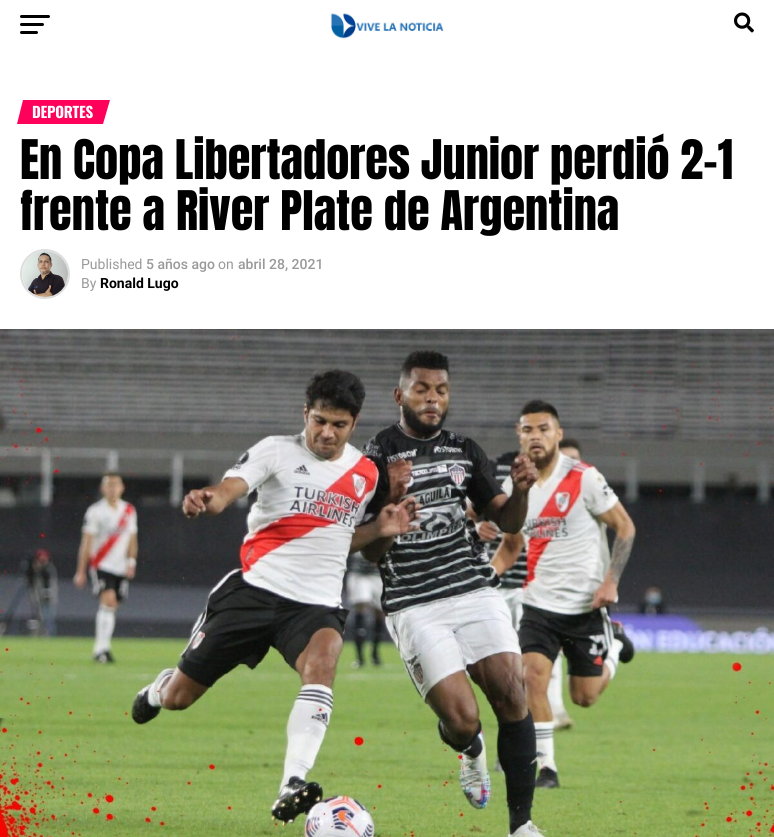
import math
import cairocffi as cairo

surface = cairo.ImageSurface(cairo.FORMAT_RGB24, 774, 837)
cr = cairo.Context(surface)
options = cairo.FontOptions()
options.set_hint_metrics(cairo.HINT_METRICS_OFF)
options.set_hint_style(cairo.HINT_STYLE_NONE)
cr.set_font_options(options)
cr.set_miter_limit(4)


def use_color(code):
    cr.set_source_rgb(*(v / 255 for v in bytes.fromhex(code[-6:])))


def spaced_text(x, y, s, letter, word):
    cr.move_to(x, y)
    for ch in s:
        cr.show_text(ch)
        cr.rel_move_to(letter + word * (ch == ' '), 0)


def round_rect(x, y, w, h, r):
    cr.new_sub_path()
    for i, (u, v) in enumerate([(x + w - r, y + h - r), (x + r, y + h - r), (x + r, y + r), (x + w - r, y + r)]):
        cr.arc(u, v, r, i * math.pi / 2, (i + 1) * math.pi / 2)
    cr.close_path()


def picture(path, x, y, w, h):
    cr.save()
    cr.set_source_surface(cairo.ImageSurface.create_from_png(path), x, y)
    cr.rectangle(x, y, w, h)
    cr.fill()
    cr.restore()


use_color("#ffffff")
cr.paint()
use_color("#000000")
round_rect(20, 15, 30, 3, 1.5)
cr.fill()
round_rect(20, 23, 24, 3, 1.5)
cr.fill()
round_rect(20, 31, 18, 3, 1.5)
cr.fill()
picture("img1.png", 330, 13, 114, 26)
picture("img2.png", 734, 12, 20, 21)
use_color("#ff005b")
cr.new_path()
cr.move_to(23, 100)
cr.line_to(110, 100)
cr.line_to(103, 124)
cr.line_to(17, 124)
cr.close_path()
cr.fill()
cr.select_font_face("Oswald", cairo.FONT_SLANT_NORMAL, cairo.FONT_WEIGHT_BOLD)
cr.set_font_size(15)
use_color("#ffffff")
spaced_text(32, 118, "DEPORTES", -0.25, 0)
cr.select_font_face("Anton")
cr.set_font_size(46.4)
use_color("#000000")
cr.move_to(20, 179)
cr.show_text("En Copa Libertadores Junior perdió 2-1")
cr.move_to(20, 230)
cr.show_text("frente a River Plate de Argentina")
cr.new_path()
cr.arc(45, 274, 24, 0, 2 * math.pi)
use_color("#dddddd")
cr.stroke()
picture("img3.png", 22, 251, 46, 46)
cr.select_font_face("Roboto")
cr.set_font_size(14)
use_color("#999999")
cr.move_to(81, 269)
cr.show_text("Published")
cr.select_font_face("Roboto Medium")
cr.move_to(146, 269)
cr.show_text("5 años ago")
cr.select_font_face("Roboto")
cr.move_to(218, 269)
cr.show_text("on")
cr.select_font_face("Roboto Medium")
cr.move_to(238, 269)
cr.show_text("abril 28, 2021")
cr.select_font_face("Roboto")
cr.move_to(81, 288)
cr.show_text("By")
cr.select_font_face("Roboto", cairo.FONT_SLANT_NORMAL, cairo.FONT_WEIGHT_BOLD)
use_color("#000000")
cr.move_to(100, 288)
cr.show_text("Ronald Lugo")
picture("img4.png", 0, 329, 774, 508)
surface.write_to_png("result.png")
